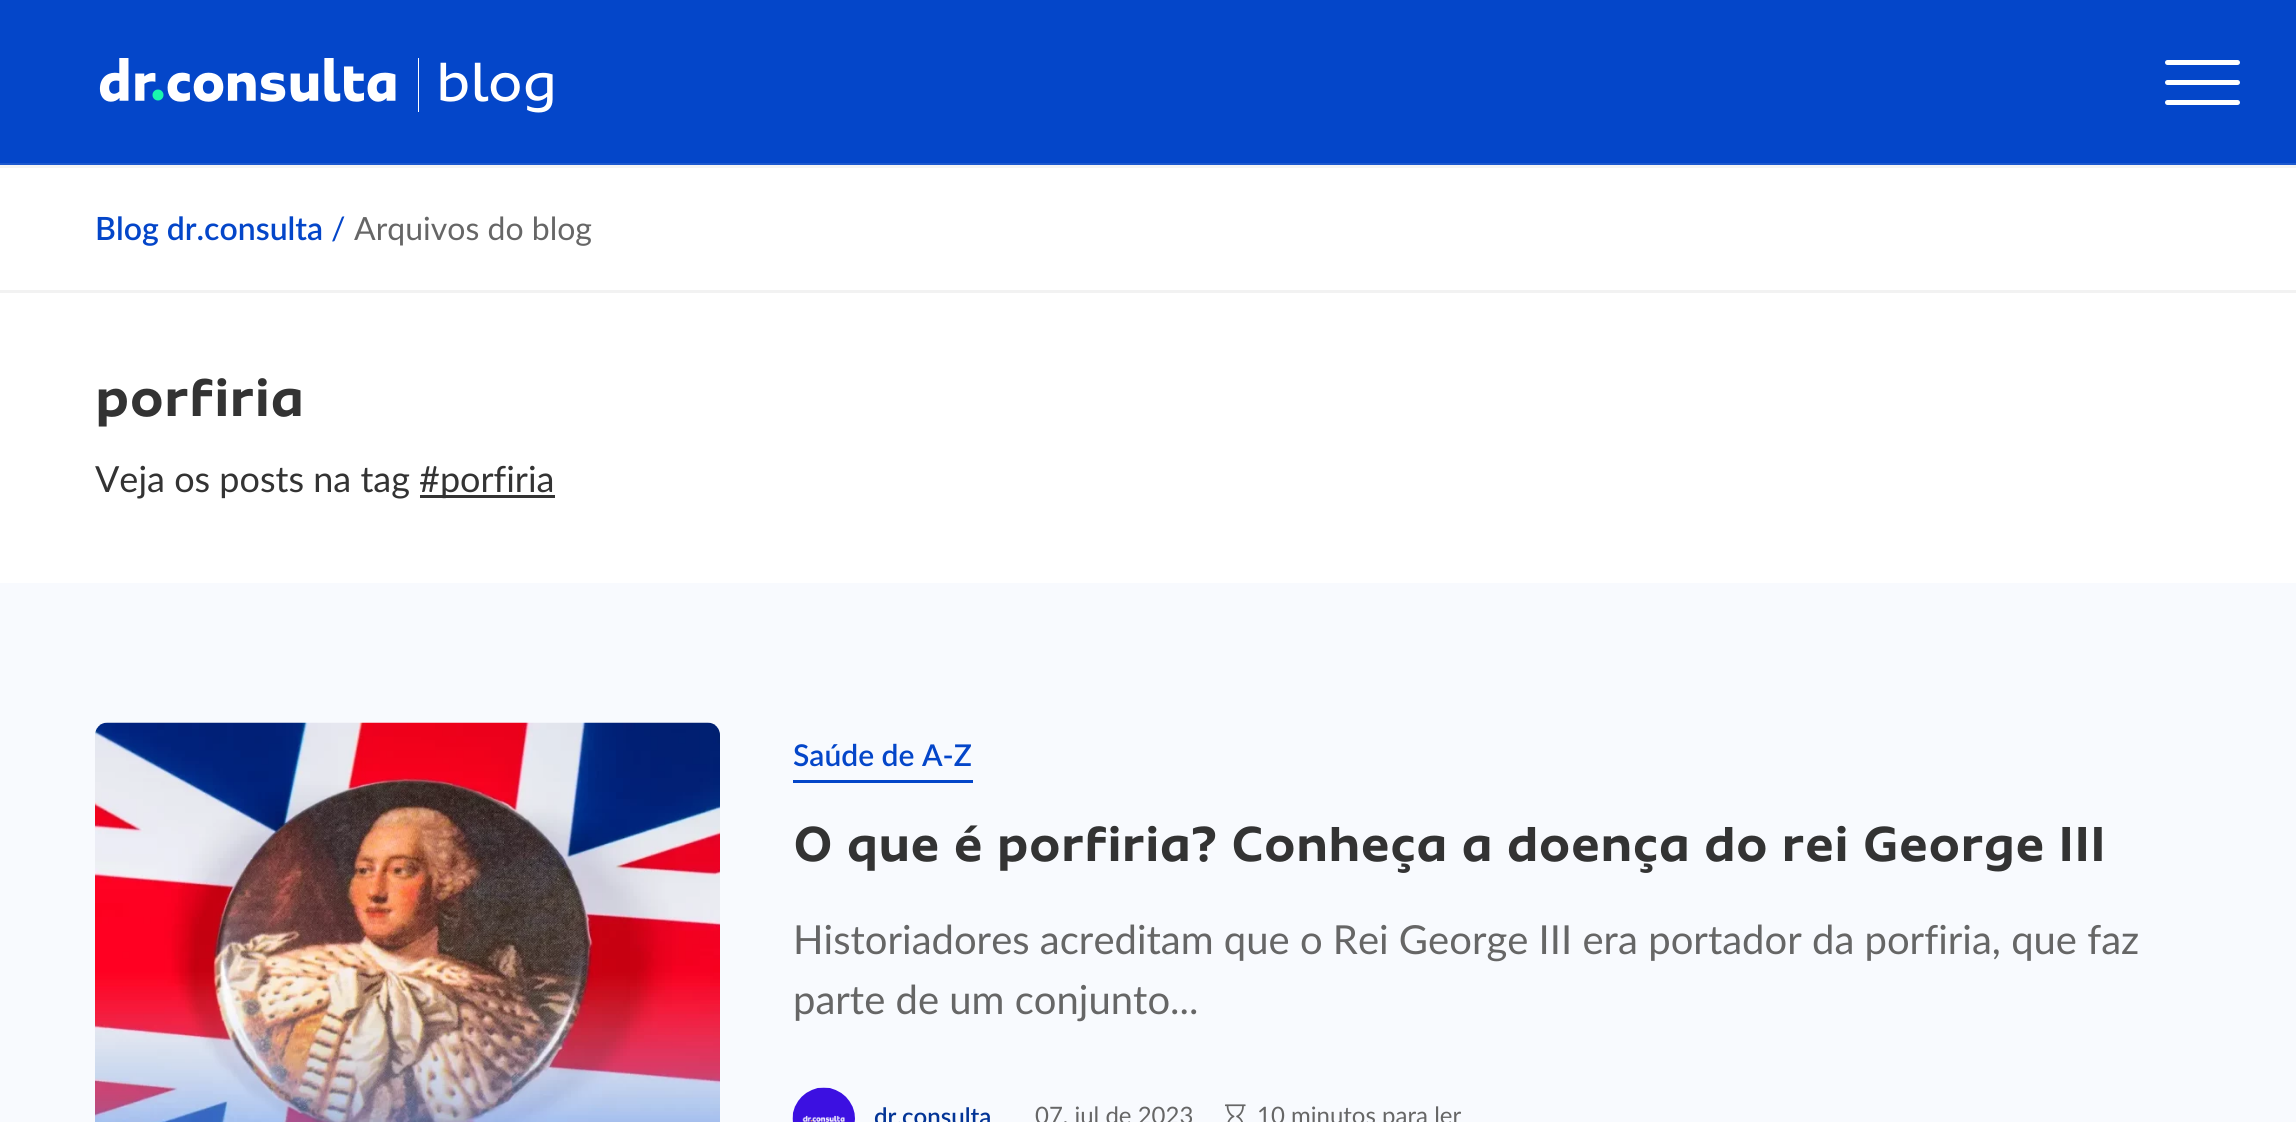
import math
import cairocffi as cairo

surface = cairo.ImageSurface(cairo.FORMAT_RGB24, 2296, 1122)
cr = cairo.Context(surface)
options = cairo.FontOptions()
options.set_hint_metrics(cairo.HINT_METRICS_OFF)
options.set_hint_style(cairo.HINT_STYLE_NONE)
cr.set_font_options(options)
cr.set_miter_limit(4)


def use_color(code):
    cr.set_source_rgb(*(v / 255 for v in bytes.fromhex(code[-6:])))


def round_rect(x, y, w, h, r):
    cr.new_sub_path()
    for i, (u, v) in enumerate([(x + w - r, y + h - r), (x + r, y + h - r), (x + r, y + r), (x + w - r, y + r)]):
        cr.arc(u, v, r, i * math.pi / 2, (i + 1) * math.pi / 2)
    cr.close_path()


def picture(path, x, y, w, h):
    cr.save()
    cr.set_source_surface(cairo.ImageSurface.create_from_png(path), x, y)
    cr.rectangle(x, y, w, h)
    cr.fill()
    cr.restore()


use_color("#f8fafe")
cr.paint()
use_color("#0446c9")
cr.rectangle(0, 0, 2296, 163)
cr.fill()
use_color("#1d59ce")
cr.rectangle(0, 163, 2296, 2)
cr.fill()
picture("img1.png", 99, 58, 454, 55)
use_color("#ffffff")
round_rect(2165, 80, 75, 5, 2.5)
cr.fill()
round_rect(2165, 60, 75, 5, 2.5)
cr.fill()
round_rect(2165, 100, 75, 5, 2.5)
cr.fill()
cr.rectangle(0, 168, 2296, 122)
cr.fill()
use_color("#f4f4f4")
cr.rectangle(0, 166, 2296, 2)
cr.fill()
use_color("#f5f5f5")
cr.rectangle(0, 165, 2296, 1)
cr.fill()
cr.select_font_face("Lato SemiBold")
cr.set_font_size(32)
use_color("#0446c9")
cr.move_to(95, 240)
cr.show_text("Blog dr.consulta")
cr.select_font_face("Lato")
cr.move_to(331, 240)
cr.show_text("/")
use_color("#666666")
cr.move_to(354, 240)
cr.show_text("Arquivos do blog")
use_color("#ffffff")
cr.rectangle(0, 293, 2296, 290)
cr.fill()
use_color("#f2f2f2")
cr.rectangle(0, 290, 2296, 3)
cr.fill()
cr.select_font_face("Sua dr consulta", cairo.FONT_SLANT_NORMAL, cairo.FONT_WEIGHT_BOLD)
cr.set_font_size(56)
use_color("#333333")
cr.move_to(95, 416)
cr.show_text("porfiria")
cr.select_font_face("Lato")
cr.set_font_size(36)
cr.move_to(95, 492)
cr.show_text("Veja os posts na tag")
cr.rectangle(420, 495, 135, 3)
cr.fill()
cr.move_to(419, 492)
cr.show_text("#porfiria")
picture("img2.png", 95, 722, 625, 400)
use_color("#0446c9")
cr.rectangle(793, 780, 180, 3)
cr.fill()
cr.select_font_face("Lato SemiBold")
cr.set_font_size(30)
cr.move_to(793, 766)
cr.show_text("Saúde de A-Z")
cr.select_font_face("Sua dr consulta", cairo.FONT_SLANT_NORMAL, cairo.FONT_WEIGHT_BOLD)
cr.set_font_size(52)
use_color("#333333")
cr.move_to(793, 861)
cr.show_text("O que é porfiria? Conheça a doença do rei George III")
cr.select_font_face("Lato")
cr.set_font_size(40)
use_color("#666666")
cr.move_to(793, 954)
cr.show_text("Historiadores acreditam que o Rei George III era portador da porfiria, que faz")
cr.move_to(793, 1014)
cr.show_text("parte de um conjunto...")
picture("img3.png", 792, 1087, 63, 35)
cr.select_font_face("Lato SemiBold")
cr.set_font_size(24)
use_color("#033496")
cr.move_to(874, 1125)
cr.show_text("dr.consulta")
cr.select_font_face("Lato")
use_color("#666666")
cr.move_to(1035, 1124)
cr.show_text("07, jul de 2023")
picture("img4.png", 1225, 1104, 21, 18)
cr.move_to(1257, 1124)
cr.show_text("10 minutos para ler")
surface.write_to_png("result.png")
